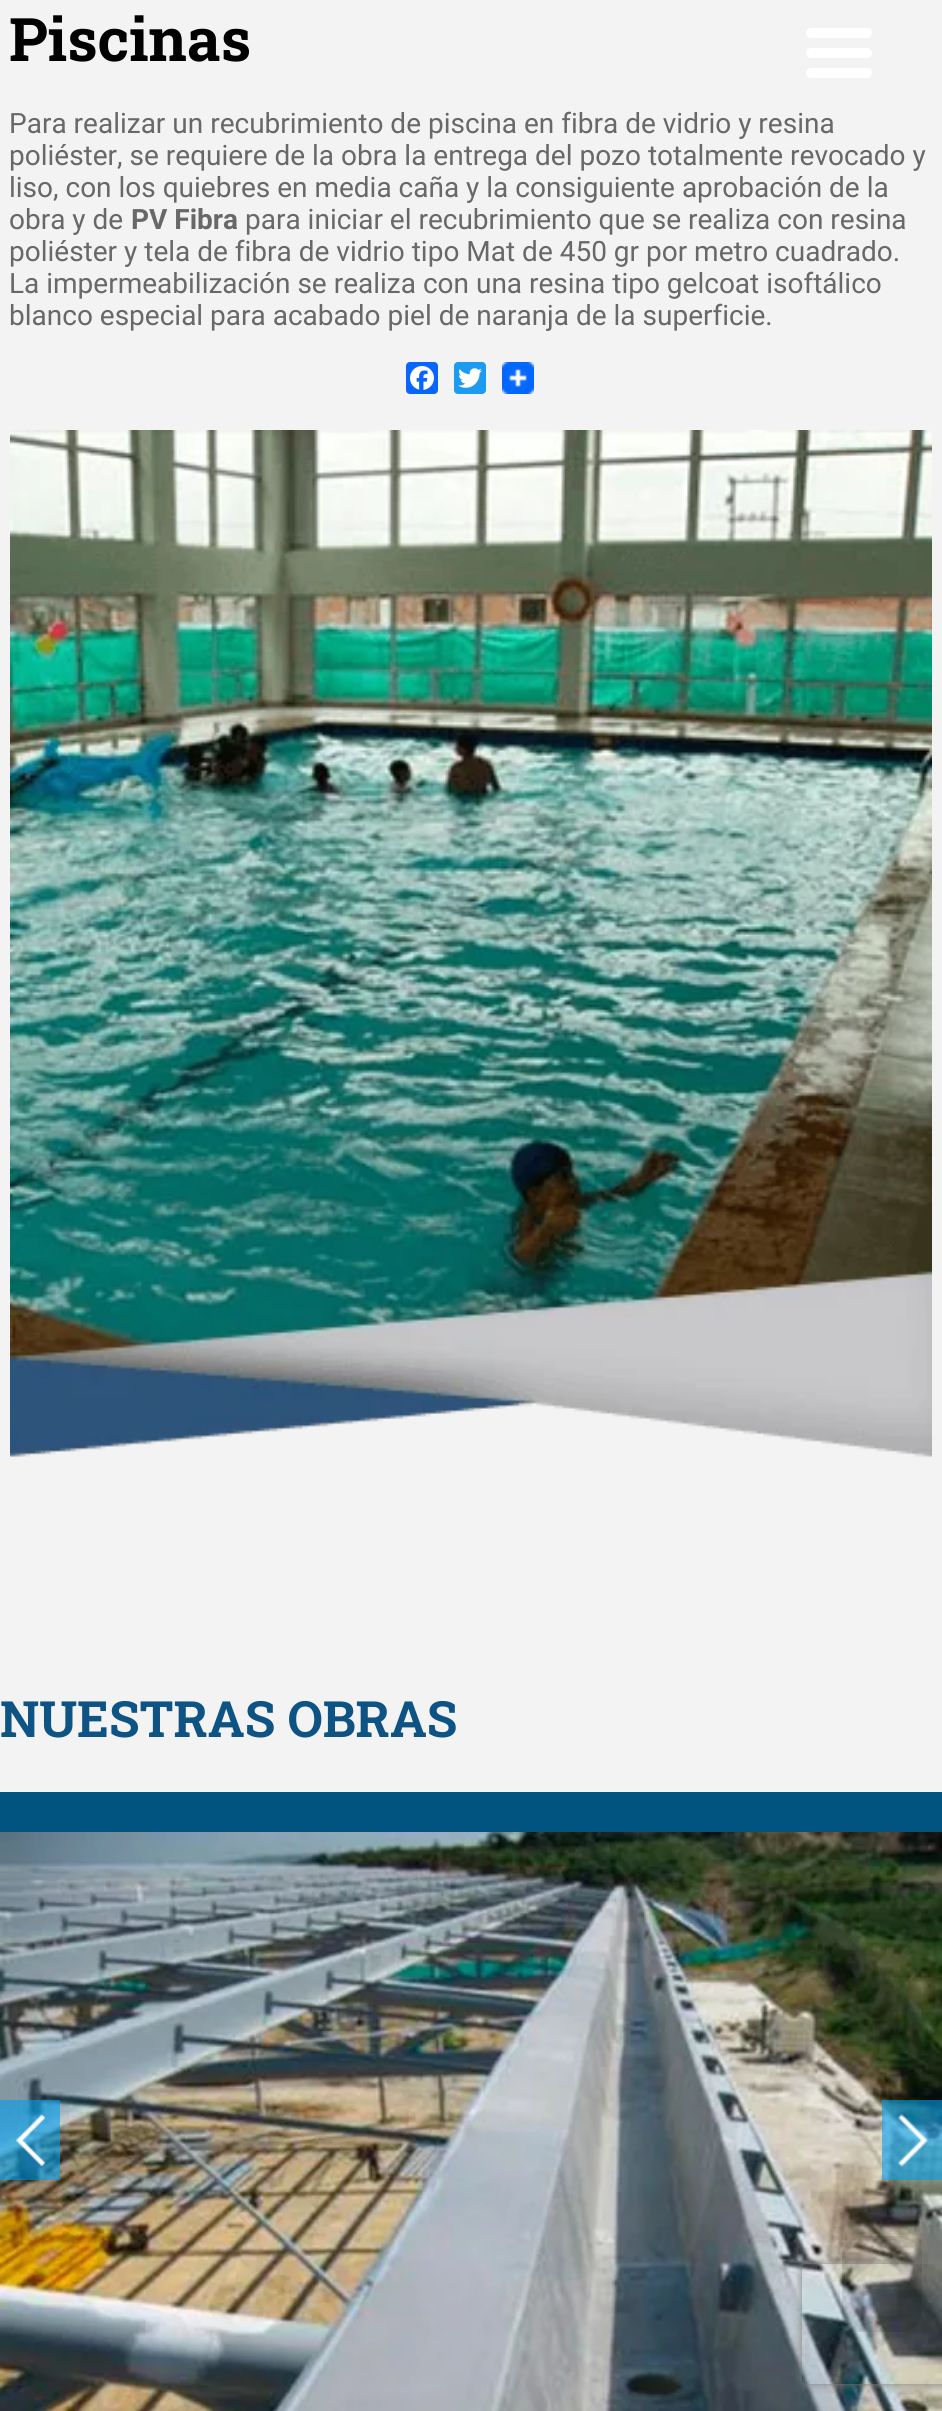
import math
import cairocffi as cairo

surface = cairo.ImageSurface(cairo.FORMAT_RGB24, 942, 2411)
cr = cairo.Context(surface)
options = cairo.FontOptions()
options.set_hint_metrics(cairo.HINT_METRICS_OFF)
options.set_hint_style(cairo.HINT_STYLE_NONE)
cr.set_font_options(options)
cr.set_miter_limit(4)


def use_color(code):
    cr.set_source_rgb(*(v / 255 for v in bytes.fromhex(code[-6:])))


def round_rect(x, y, w, h, r):
    cr.new_sub_path()
    for i, (u, v) in enumerate([(x + w - r, y + h - r), (x + r, y + h - r), (x + r, y + r), (x + w - r, y + r)]):
        cr.arc(u, v, r, i * math.pi / 2, (i + 1) * math.pi / 2)
    cr.close_path()


def shadow(x, y, w, h, r, blur, alpha):
    cr.push_group_with_content(cairo.CONTENT_ALPHA)
    cr.set_operator(cairo.OPERATOR_SOURCE)
    for i in range(15, -16, -2):
        e = blur * i / 6
        if min(w, h) + 2 * e > 0:
            cr.set_source_rgba(0, 0, 0, alpha * math.erfc((i - 1) / 8.5) / 2)
            round_rect(x - e, y - e, w + 2 * e, h + 2 * e, max(0, min(r + e + blur * .6, min(w, h) / 2 + e)))
            cr.fill()
    cr.mask(cr.pop_group())


def picture(path, x, y, w, h):
    cr.save()
    cr.set_source_surface(cairo.ImageSurface.create_from_png(path), x, y)
    cr.rectangle(x, y, w, h)
    cr.fill()
    cr.restore()


use_color("#f4f3f3")
cr.paint()
cr.select_font_face("Roboto Slab", cairo.FONT_SLANT_NORMAL, cairo.FONT_WEIGHT_BOLD)
cr.set_font_size(60)
use_color("#010101")
cr.move_to(9, 61)
cr.show_text("Piscinas")
cr.select_font_face("Roboto")
cr.set_font_size(28)
use_color("#686868")
cr.move_to(9, 133)
cr.show_text("Para realizar un recubrimiento de piscina en fibra de vidrio y resina")
cr.move_to(9, 165)
cr.show_text("poliéster, se requiere de la obra la entrega del pozo totalmente revocado y")
cr.move_to(9, 197)
cr.show_text("liso, con los quiebres en media caña y la consiguiente aprobación de la")
cr.move_to(9, 229)
cr.show_text("obra y de")
cr.select_font_face("Roboto", cairo.FONT_SLANT_NORMAL, cairo.FONT_WEIGHT_BOLD)
cr.move_to(131, 229)
cr.show_text("PV Fibra")
cr.select_font_face("Roboto")
cr.move_to(245, 229)
cr.show_text("para iniciar el recubrimiento que se realiza con resina")
cr.move_to(9, 261)
cr.show_text("poliéster y tela de fibra de vidrio tipo Mat de 450 gr por metro cuadrado.")
cr.move_to(9, 293)
cr.show_text("La impermeabilización se realiza con una resina tipo gelcoat isoftálico")
cr.move_to(9, 325)
cr.show_text("blanco especial para acabado piel de naranja de la superficie.")
use_color("#0866ff")
round_rect(406, 362, 32, 32, 4)
cr.fill()
picture("img1.png", 410, 366, 24, 24)
use_color("#1d9bf0")
round_rect(454, 362, 32, 32, 4)
cr.fill()
picture("img2.png", 458, 368, 24, 20)
picture("img3.png", 502, 362, 32, 32)
picture("img4.png", 10, 430, 922, 1027)
cr.select_font_face("Roboto Slab", cairo.FONT_SLANT_NORMAL, cairo.FONT_WEIGHT_BOLD)
cr.set_font_size(50)
use_color("#0d5384")
cr.move_to(0, 1737)
cr.show_text("NUESTRAS OBRAS")
use_color("#015480")
cr.rectangle(0, 1792, 942, 40)
cr.fill()
picture("img5.png", 0, 1832, 942, 579)
cr.set_source_rgba(0, 0.62, 0.929, 0.6)
cr.rectangle(0, 2100, 60, 80)
cr.fill()
picture("img6.png", 16, 2114, 30, 52)
cr.rectangle(882, 2100, 60, 80)
cr.fill()
picture("img7.png", 897, 2113, 32, 54)
use_color("#ffffff")
round_rect(806, 48, 66, 10, 5)
cr.fill()
round_rect(806, 28, 66, 10, 5)
cr.fill()
round_rect(806, 68, 66, 10, 5)
cr.fill()
cr.save()
cr.set_fill_rule(cairo.FILL_RULE_EVEN_ODD)
cr.new_path()
cr.move_to(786, 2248)
cr.line_to(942, 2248)
cr.line_to(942, 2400)
cr.line_to(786, 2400)
cr.close_path()
cr.move_to(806, 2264)
cr.line_to(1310, 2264)
cr.curve_to(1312, 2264, 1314, 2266, 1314, 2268)
cr.line_to(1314, 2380)
cr.curve_to(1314, 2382, 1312, 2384, 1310, 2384)
cr.line_to(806, 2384)
cr.curve_to(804, 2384, 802, 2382, 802, 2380)
cr.line_to(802, 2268)
cr.curve_to(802, 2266, 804, 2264, 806, 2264)
cr.close_path()
cr.clip()
use_color("#808080")
shadow(802, 2264, 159, 120, 4, 5, 1)
cr.restore()
picture("img8.png", 842, 2236, 80, 96)
surface.write_to_png("result.png")
